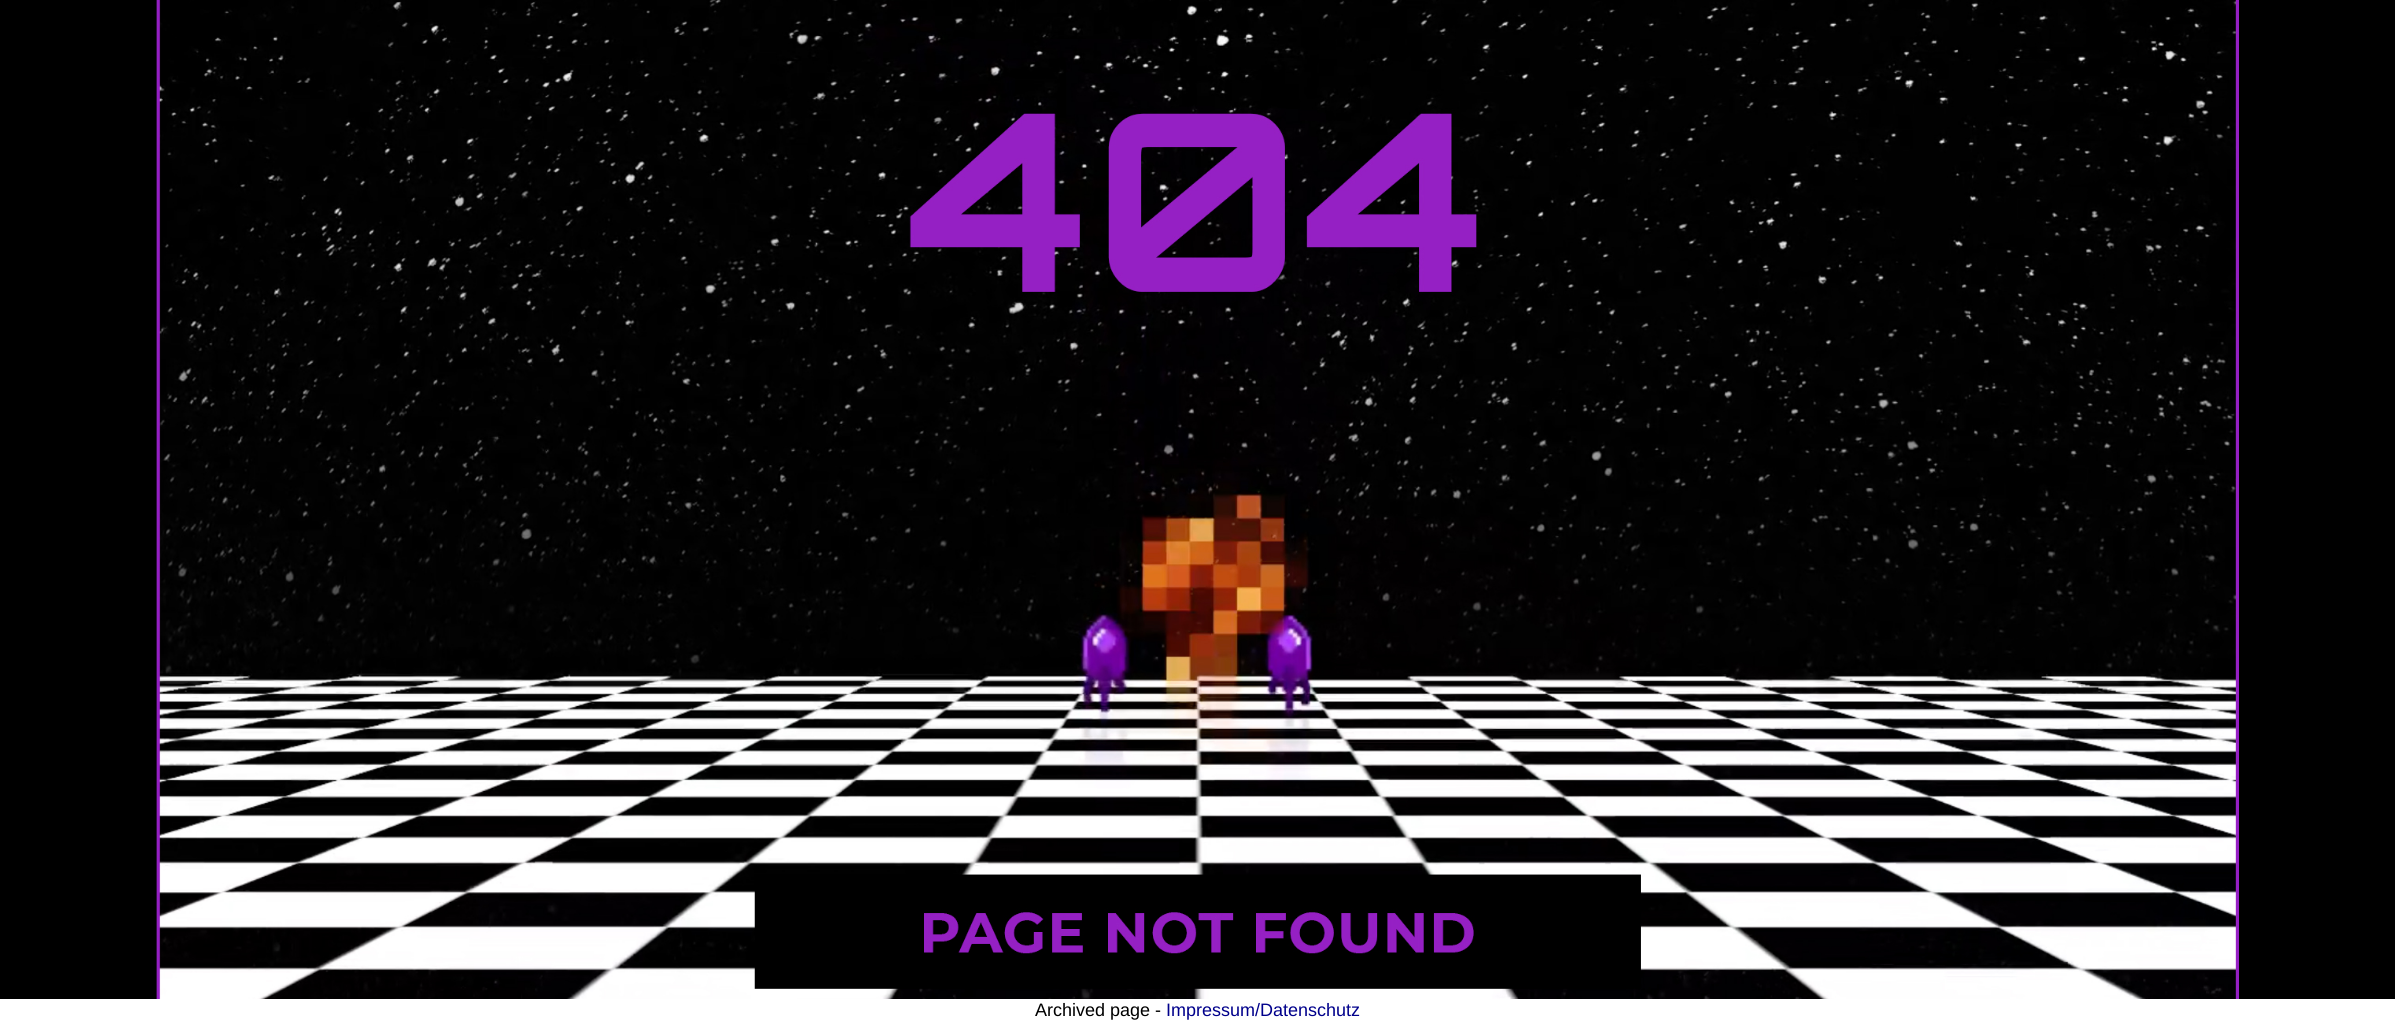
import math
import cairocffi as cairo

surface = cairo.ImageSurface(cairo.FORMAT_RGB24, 2395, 1022)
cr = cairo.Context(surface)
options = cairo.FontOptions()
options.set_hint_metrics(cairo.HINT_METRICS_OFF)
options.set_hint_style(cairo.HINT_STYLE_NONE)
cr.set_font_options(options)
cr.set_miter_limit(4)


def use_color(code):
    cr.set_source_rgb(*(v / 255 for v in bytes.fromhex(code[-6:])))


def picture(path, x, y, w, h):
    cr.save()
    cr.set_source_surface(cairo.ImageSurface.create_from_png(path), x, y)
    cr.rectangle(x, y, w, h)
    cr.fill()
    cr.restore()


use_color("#000000")
cr.paint()
picture("img1.png", 156, 0, 2083, 999)
use_color("#ffffff")
cr.rectangle(0, 999, 2395, 23)
cr.fill()
cr.select_font_face("Liberation Sans")
cr.set_font_size(18)
use_color("#000000")
cr.move_to(1035, 1016)
cr.show_text("Archived page -")
use_color("#00008b")
cr.move_to(1166, 1016)
cr.show_text("Impressum/Datenschutz")
surface.write_to_png("result.png")
